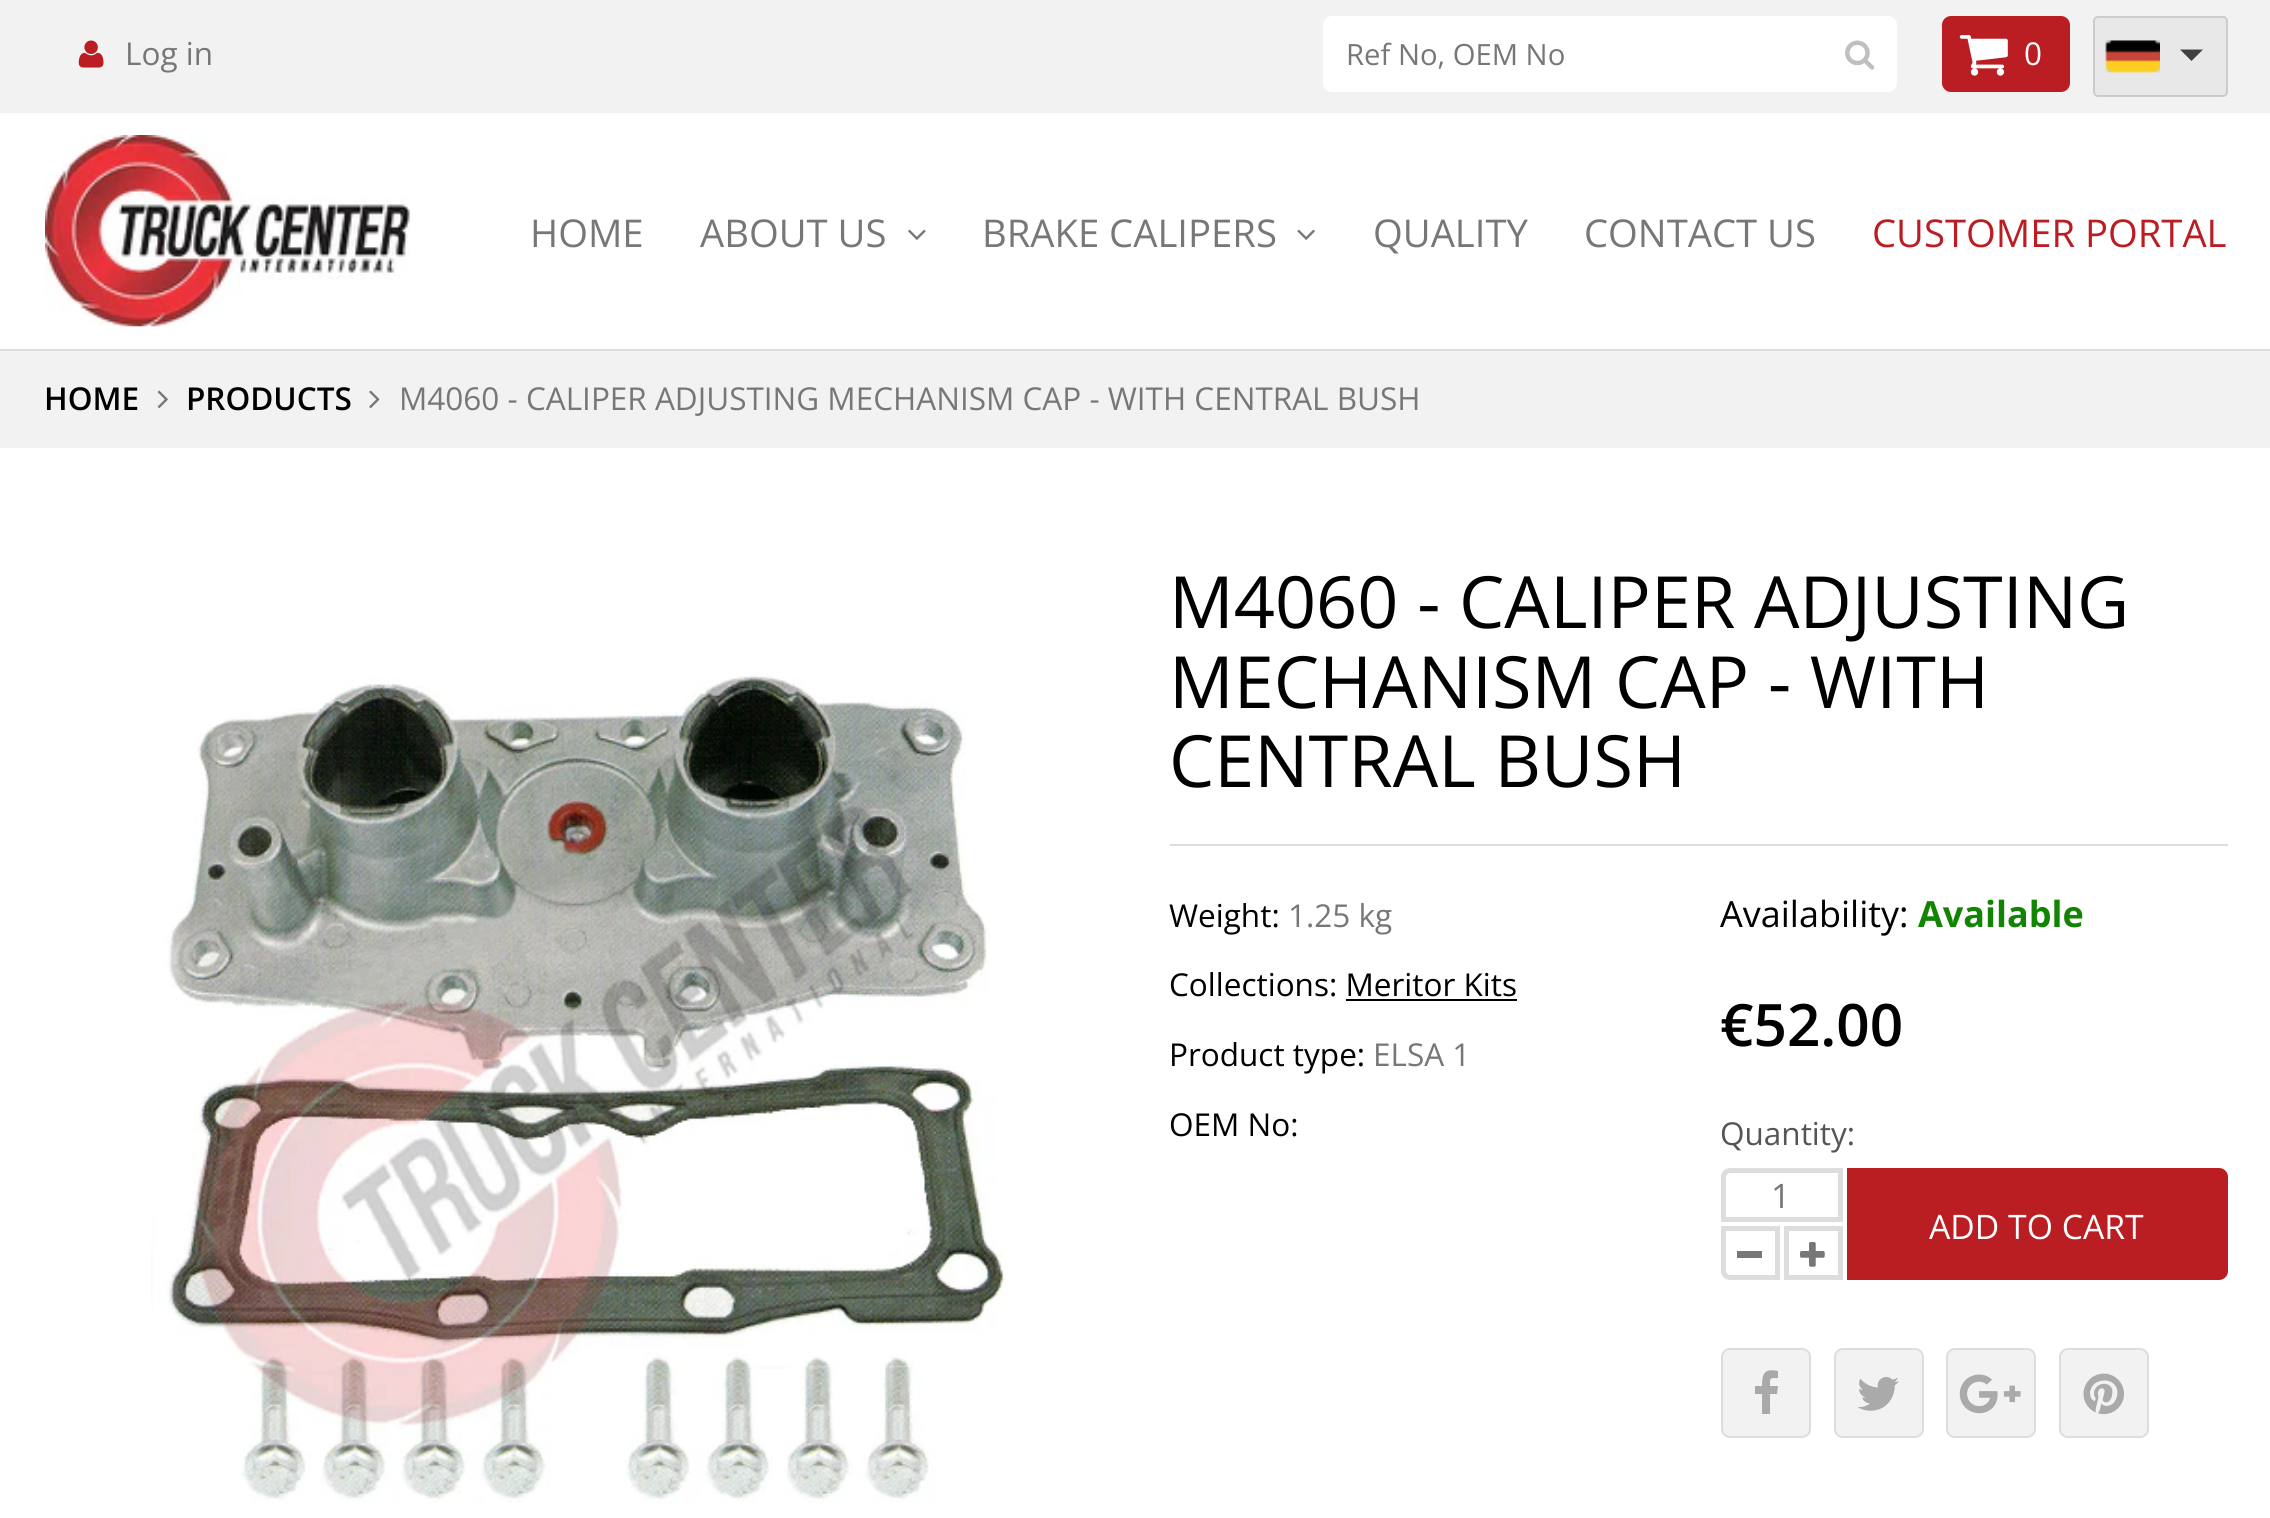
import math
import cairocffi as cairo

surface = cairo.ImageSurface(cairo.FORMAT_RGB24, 2270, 1518)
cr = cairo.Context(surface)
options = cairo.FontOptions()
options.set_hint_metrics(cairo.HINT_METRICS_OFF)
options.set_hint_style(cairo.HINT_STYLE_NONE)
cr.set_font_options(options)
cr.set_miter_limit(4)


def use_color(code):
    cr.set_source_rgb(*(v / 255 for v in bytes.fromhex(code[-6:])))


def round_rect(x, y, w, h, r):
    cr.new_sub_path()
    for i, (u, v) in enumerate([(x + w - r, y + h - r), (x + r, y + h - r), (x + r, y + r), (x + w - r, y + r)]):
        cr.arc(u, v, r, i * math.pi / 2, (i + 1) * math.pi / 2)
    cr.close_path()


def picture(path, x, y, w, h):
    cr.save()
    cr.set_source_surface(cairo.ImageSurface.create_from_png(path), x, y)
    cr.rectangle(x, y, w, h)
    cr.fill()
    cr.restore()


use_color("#f2f2f2")
cr.paint()
picture("img1.png", 78, 40, 26, 28)
cr.select_font_face("Open Sans")
cr.set_font_size(31.5)
use_color("#777777")
cr.move_to(125, 65)
cr.show_text("Log in")
use_color("#ffffff")
round_rect(1323, 16, 574, 76, 9)
cr.fill()
cr.set_font_size(29.25)
use_color("#777777")
cr.move_to(1346, 65)
cr.show_text("Ref No, OEM No")
picture("img2.png", 1845, 40, 30, 30)
use_color("#ba1d22")
round_rect(1942, 16, 128, 76, 9)
cr.fill()
picture("img3.png", 1959, 35, 49, 41)
cr.set_font_size(31.5)
use_color("#ffffff")
cr.move_to(2024, 65)
cr.show_text("0")
use_color("#e8e8e8")
round_rect(2094, 17, 133, 79, 4)
cr.fill_preserve()
use_color("#cccccc")
cr.stroke()
picture("img4.png", 2105, 40, 55, 33)
use_color("#404040")
cr.new_path()
cr.move_to(2180, 49.5)
cr.line_to(2203, 49.5)
cr.line_to(2191.5, 61)
cr.close_path()
cr.fill()
use_color("#dddddd")
cr.rectangle(0, 349, 2270, 2)
cr.fill()
use_color("#ffffff")
cr.rectangle(0, 113, 2270, 236)
cr.fill()
picture("img5.png", 45, 135, 365, 192)
cr.set_font_size(38.25)
use_color("#777777")
cr.move_to(530, 247)
cr.show_text("HOME")
cr.move_to(700, 247)
cr.show_text("ABOUT US")
picture("img6.png", 908, 229, 18, 11)
cr.move_to(982, 247)
cr.show_text("BRAKE CALIPERS")
picture("img7.png", 1297, 229, 18, 11)
cr.move_to(1373, 247)
cr.show_text("QUALITY")
cr.move_to(1584, 247)
cr.show_text("CONTACT US")
use_color("#ba1d22")
cr.move_to(1872, 247)
cr.show_text("CUSTOMER PORTAL")
use_color("#ffffff")
cr.rectangle(0, 448, 2270, 1070)
cr.fill()
cr.select_font_face("Open Sans SemiBold")
cr.set_font_size(31.5)
use_color("#000000")
cr.move_to(44, 410)
cr.show_text("HOME")
picture("img8.png", 157, 390, 11, 19)
cr.move_to(186, 410)
cr.show_text("PRODUCTS")
picture("img9.png", 369, 390, 11, 19)
cr.select_font_face("Open Sans")
use_color("#777777")
cr.move_to(399, 410)
cr.show_text("M4060 - CALIPER ADJUSTING MECHANISM CAP - WITH CENTRAL BUSH")
picture("img10.png", 151, 674, 854, 829)
cr.set_font_size(72)
use_color("#000000")
cr.move_to(1169, 628)
cr.show_text("M4060 - CALIPER ADJUSTING")
cr.move_to(1169, 708)
cr.show_text("MECHANISM CAP - WITH")
cr.move_to(1169, 787)
cr.show_text("CENTRAL BUSH")
use_color("#dddddd")
cr.rectangle(1170, 844, 1058, 2)
cr.fill()
cr.set_font_size(31.5)
use_color("#000000")
cr.move_to(1169, 927)
cr.show_text("Weight:")
use_color("#777777")
cr.move_to(1288, 927)
cr.show_text("1.25 kg")
use_color("#000000")
cr.move_to(1169, 996)
cr.show_text("Collections: Meritor Kits")
cr.rectangle(1346, 999, 171, 2)
cr.fill()
cr.move_to(1169, 1066)
cr.show_text("Product type:")
use_color("#777777")
cr.move_to(1373, 1066)
cr.show_text("ELSA 1")
use_color("#000000")
cr.move_to(1169, 1136)
cr.show_text("OEM No:")
cr.set_font_size(36)
cr.move_to(1720, 927)
cr.show_text("Availability:")
cr.select_font_face("Open Sans", cairo.FONT_SLANT_NORMAL, cairo.FONT_WEIGHT_BOLD)
use_color("#118502")
cr.move_to(1918, 927)
cr.show_text("Available")
cr.select_font_face("Open Sans SemiBold")
cr.set_font_size(58.5)
use_color("#000000")
cr.move_to(1720, 1046)
cr.show_text("€52.00")
cr.select_font_face("Open Sans")
cr.set_font_size(31.5)
use_color("#555555")
cr.move_to(1720, 1145)
cr.show_text("Quantity:")
cr.new_path()
cr.move_to(1730, 1170.5)
cr.line_to(1840.5, 1170.5)
cr.line_to(1840.5, 1219.5)
cr.line_to(1723.5, 1219.5)
cr.line_to(1723.5, 1177)
cr.curve_to(1723.5, 1173.5, 1726.5, 1170.5, 1730, 1170.5)
cr.close_path()
use_color("#dddddd")
cr.set_line_width(5)
cr.stroke()
cr.set_font_size(33.75)
use_color("#777777")
cr.move_to(1771, 1208)
cr.show_text("1")
cr.new_path()
cr.move_to(1723.5, 1228.5)
cr.line_to(1777.5, 1228.5)
cr.line_to(1777.5, 1277.5)
cr.line_to(1730, 1277.5)
cr.curve_to(1726.5, 1277.5, 1723.5, 1274.5, 1723.5, 1271)
cr.close_path()
use_color("#dddddd")
cr.stroke()
use_color("#777777")
cr.rectangle(1737, 1251, 25, 7)
cr.fill()
cr.rectangle(1786.5, 1228.5, 54, 49)
use_color("#dddddd")
cr.stroke()
picture("img11.png", 1800, 1242, 25, 25)
use_color("#ba1d22")
cr.new_path()
cr.move_to(1847, 1168)
cr.line_to(2219, 1168)
cr.curve_to(2224, 1168, 2228, 1172, 2228, 1177)
cr.line_to(2228, 1271)
cr.curve_to(2228, 1276, 2224, 1280, 2219, 1280)
cr.line_to(1847, 1280)
cr.close_path()
cr.fill()
use_color("#ffffff")
cr.move_to(1929, 1239)
cr.show_text("ADD TO CART")
use_color("#f2f2f2")
round_rect(1722, 1349, 88, 88, 8)
cr.fill_preserve()
use_color("#dddddd")
cr.set_line_width(2)
cr.stroke()
use_color("#a9a9a9")
cr.new_path()
cr.move_to(1778, 1371)
cr.line_to(1778, 1378)
cr.curve_to(1769, 1378, 1770, 1378, 1770, 1386)
cr.line_to(1778, 1386)
cr.line_to(1777, 1394)
cr.line_to(1770, 1394)
cr.line_to(1770, 1414)
cr.line_to(1762, 1414)
cr.line_to(1762, 1394)
cr.line_to(1755, 1394)
cr.line_to(1755, 1386)
cr.line_to(1762, 1386)
cr.curve_to(1762, 1374, 1764, 1368, 1778, 1371)
cr.close_path()
cr.fill()
use_color("#f2f2f2")
round_rect(1835, 1349, 88, 88, 8)
cr.fill_preserve()
use_color("#dddddd")
cr.stroke()
picture("img12.png", 1858, 1377, 41, 34)
use_color("#f2f2f2")
round_rect(1947, 1349, 88, 88, 8)
cr.fill_preserve()
use_color("#dddddd")
cr.stroke()
picture("img13.png", 1959, 1374, 62, 40)
use_color("#f2f2f2")
round_rect(2060, 1349, 88, 88, 8)
cr.fill_preserve()
use_color("#dddddd")
cr.stroke()
picture("img14.png", 2083, 1373, 41, 42)
surface.write_to_png("result.png")
